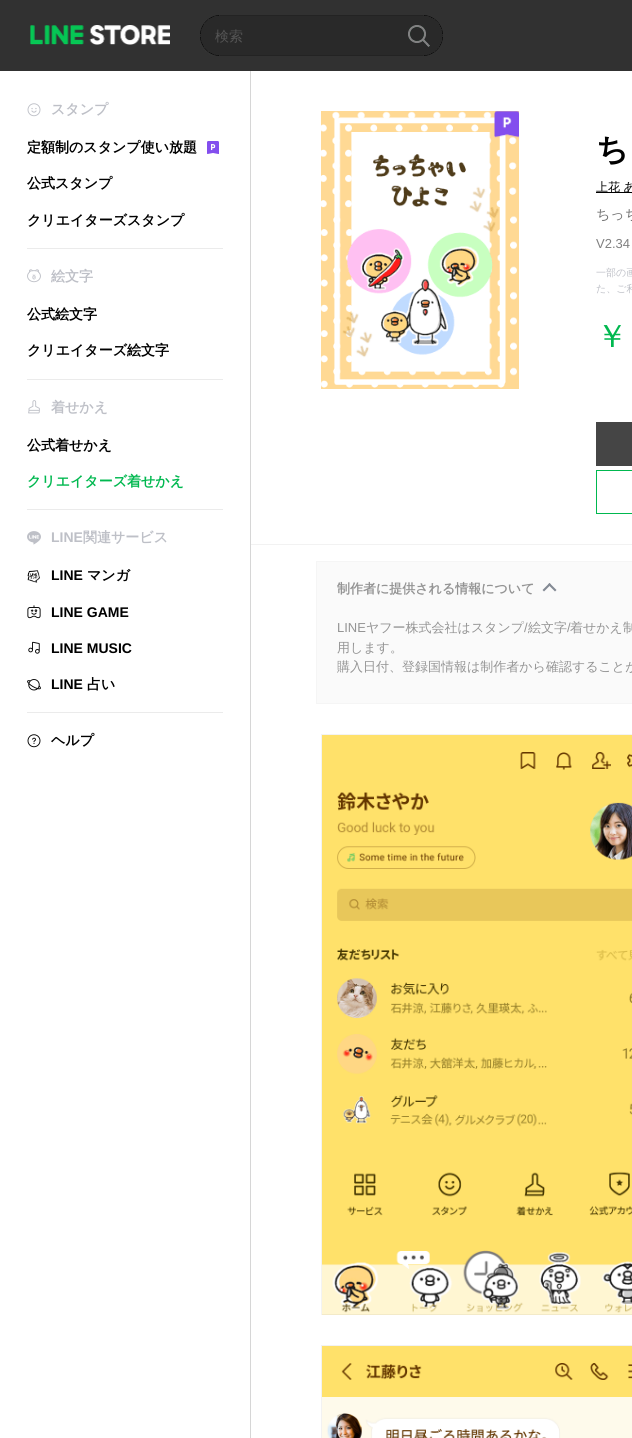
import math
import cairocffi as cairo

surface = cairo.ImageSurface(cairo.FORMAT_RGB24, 632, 1438)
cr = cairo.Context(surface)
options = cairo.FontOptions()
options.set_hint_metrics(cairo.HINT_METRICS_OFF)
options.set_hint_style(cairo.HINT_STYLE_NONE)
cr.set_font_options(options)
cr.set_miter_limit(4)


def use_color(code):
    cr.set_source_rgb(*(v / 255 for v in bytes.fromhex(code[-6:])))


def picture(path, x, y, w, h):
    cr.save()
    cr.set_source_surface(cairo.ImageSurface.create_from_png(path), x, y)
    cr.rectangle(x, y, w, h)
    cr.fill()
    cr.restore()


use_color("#ffffff")
cr.paint()
use_color("#313131")
cr.rectangle(0, 0, 632, 71)
cr.fill()
picture("img1.png", 30, 25, 140, 20)
picture("img2.png", 200, 15, 243, 41)
cr.select_font_face("WenQuanYi Zen Hei Medium")
cr.set_font_size(14)
use_color("#545454")
cr.move_to(215, 41)
cr.show_text("検索")
picture("img3.png", 408, 25, 22, 22)
picture("img4.png", 27, 103, 14, 14)
cr.select_font_face("WenQuanYi Zen Hei", cairo.FONT_SLANT_NORMAL, cairo.FONT_WEIGHT_BOLD)
use_color("#bec0c7")
cr.move_to(51, 114)
cr.show_text("スタンプ")
use_color("#000000")
cr.move_to(27, 152)
cr.show_text("定額制のスタンプ使い放題")
picture("img5.png", 207, 141, 12, 13)
cr.move_to(27, 188)
cr.show_text("公式スタンプ")
cr.move_to(27, 225)
cr.show_text("クリエイターズスタンプ")
use_color("#ebebeb")
cr.rectangle(27, 248, 196, 1)
cr.fill()
picture("img6.png", 27, 269, 14, 14)
use_color("#bec0c7")
cr.move_to(51, 281)
cr.show_text("絵文字")
use_color("#000000")
cr.move_to(27, 319)
cr.show_text("公式絵文字")
cr.move_to(27, 355)
cr.show_text("クリエイターズ絵文字")
use_color("#ebebeb")
cr.rectangle(27, 379, 196, 1)
cr.fill()
picture("img7.png", 28, 400, 12, 14)
use_color("#bec0c7")
cr.move_to(51, 412)
cr.show_text("着せかえ")
use_color("#000000")
cr.move_to(27, 450)
cr.show_text("公式着せかえ")
use_color("#00b84f")
cr.move_to(27, 486)
cr.show_text("クリエイターズ着せかえ")
use_color("#ebebeb")
cr.rectangle(27, 509, 196, 1)
cr.fill()
picture("img8.png", 27, 531, 14, 14)
cr.select_font_face("Liberation Sans", cairo.FONT_SLANT_NORMAL, cairo.FONT_WEIGHT_BOLD)
use_color("#bec0c7")
cr.move_to(51, 542)
cr.show_text("LINE")
cr.select_font_face("WenQuanYi Zen Hei", cairo.FONT_SLANT_NORMAL, cairo.FONT_WEIGHT_BOLD)
cr.move_to(83, 542)
cr.show_text("関連サービス")
picture("img9.png", 27, 570, 13, 13)
cr.select_font_face("Liberation Sans", cairo.FONT_SLANT_NORMAL, cairo.FONT_WEIGHT_BOLD)
use_color("#000000")
cr.move_to(51, 580)
cr.show_text("LINE")
cr.select_font_face("WenQuanYi Zen Hei", cairo.FONT_SLANT_NORMAL, cairo.FONT_WEIGHT_BOLD)
cr.move_to(87, 580)
cr.show_text("マンガ")
picture("img10.png", 27, 605, 14, 14)
cr.select_font_face("Liberation Sans", cairo.FONT_SLANT_NORMAL, cairo.FONT_WEIGHT_BOLD)
cr.move_to(51, 617)
cr.show_text("LINE GAME")
picture("img11.png", 28, 641, 12, 13)
cr.move_to(51, 653)
cr.show_text("LINE MUSIC")
picture("img12.png", 27, 679, 14, 12)
cr.move_to(51, 689)
cr.show_text("LINE")
cr.select_font_face("WenQuanYi Zen Hei", cairo.FONT_SLANT_NORMAL, cairo.FONT_WEIGHT_BOLD)
cr.move_to(87, 689)
cr.show_text("占い")
use_color("#ebebeb")
cr.rectangle(27, 712, 196, 1)
cr.fill()
picture("img13.png", 27, 734, 14, 14)
use_color("#000000")
cr.move_to(51, 745)
cr.show_text("ヘルプ")
use_color("#d6d6d6")
cr.rectangle(250, 71, 1, 1367)
cr.fill()
picture("img14.png", 321, 111, 198, 278)
picture("img15.png", 494, 111, 25, 27)
cr.set_font_size(32)
use_color("#000000")
cr.move_to(596, 160)
cr.show_text("ち")
cr.rectangle(596, 192, 36, 1)
cr.fill()
cr.select_font_face("WenQuanYi Zen Hei Medium")
cr.set_font_size(12)
cr.move_to(596, 191)
cr.show_text("上花 あ")
cr.set_font_size(14)
use_color("#737373")
cr.move_to(596, 219)
cr.show_text("ちっち")
cr.select_font_face("Liberation Sans")
cr.set_font_size(13)
use_color("#7f7f7f")
cr.move_to(596, 248)
cr.show_text("V2.34")
cr.select_font_face("WenQuanYi Zen Hei Medium")
cr.set_font_size(10)
use_color("#bec0c7")
cr.move_to(596, 276)
cr.show_text("一部の画")
cr.move_to(596, 292)
cr.show_text("た、ご利")
cr.set_font_size(32)
use_color("#00b84f")
cr.move_to(596, 347)
cr.show_text("￥")
use_color("#454545")
cr.rectangle(596, 422, 36, 44)
cr.fill()
cr.rectangle(596.5, 470.5, 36, 43)
use_color("#00b84f")
cr.set_line_width(1)
cr.stroke()
use_color("#f2f2f2")
cr.rectangle(251, 544, 381, 1)
cr.fill()
use_color("#fafafa")
cr.rectangle(316.5, 561.5, 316, 142)
cr.fill_preserve()
use_color("#f5f5f5")
cr.stroke()
cr.select_font_face("WenQuanYi Zen Hei", cairo.FONT_SLANT_NORMAL, cairo.FONT_WEIGHT_BOLD)
cr.set_font_size(13)
use_color("#949494")
cr.move_to(337, 593)
cr.show_text("制作者に提供される情報について")
use_color("#848a94")
cr.new_path()
cr.move_to(542.5, 590)
cr.line_to(549.5, 583)
cr.line_to(551, 584.5)
cr.line_to(544, 591.5)
cr.close_path()
cr.fill()
cr.new_path()
cr.move_to(548, 584.5)
cr.line_to(549.5, 583)
cr.line_to(556.5, 590)
cr.line_to(555, 591.5)
cr.close_path()
cr.fill()
cr.select_font_face("Liberation Sans")
use_color("#949494")
cr.move_to(337, 632)
cr.show_text("LINE")
cr.select_font_face("WenQuanYi Zen Hei Medium")
cr.move_to(366, 632)
cr.show_text("ヤフー株式会社はスタンプ")
cr.select_font_face("Liberation Sans")
cr.move_to(524, 632)
cr.show_text("/")
cr.select_font_face("WenQuanYi Zen Hei Medium")
cr.move_to(528, 632)
cr.show_text("絵文字")
cr.select_font_face("Liberation Sans")
cr.move_to(567, 632)
cr.show_text("/")
cr.select_font_face("WenQuanYi Zen Hei Medium")
cr.move_to(570, 632)
cr.show_text("着せかえ制")
cr.move_to(337, 652)
cr.show_text("用します。")
cr.move_to(337, 671)
cr.show_text("購入日付、登録国情報は制作者から確認することが")
picture("img16.png", 322, 735, 310, 580)
cr.rectangle(321.5, 734.5, 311, 580)
cr.set_source_rgba(0, 0, 0, 0.05)
cr.stroke()
picture("img17.png", 322, 1346, 310, 92)
cr.rectangle(321.5, 1345.5, 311, 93)
use_color("#f2f2f2")
cr.stroke()
surface.write_to_png("result.png")
